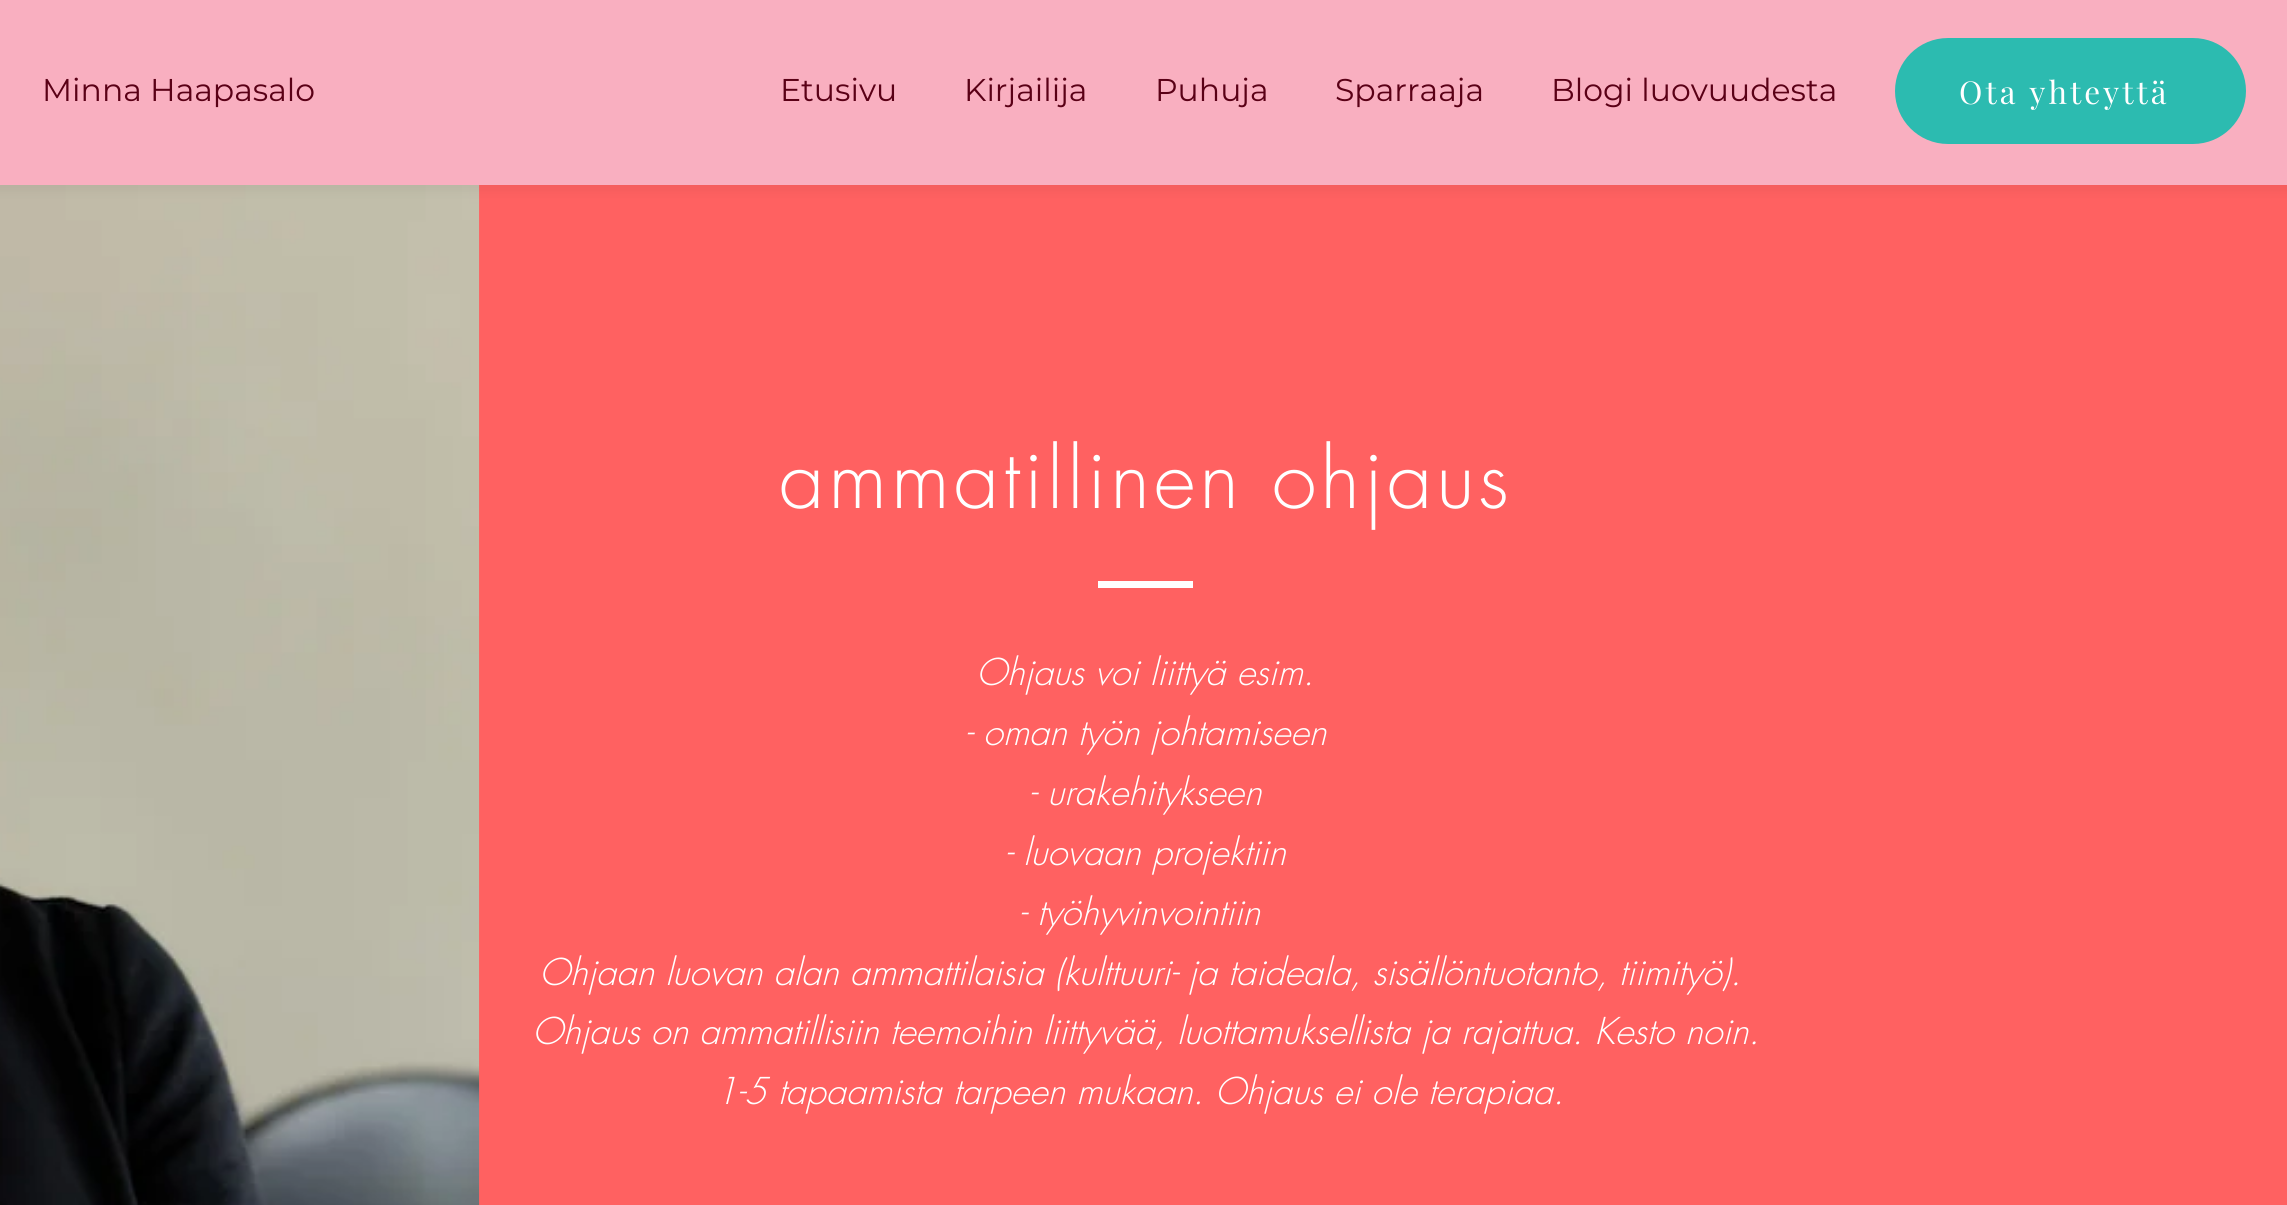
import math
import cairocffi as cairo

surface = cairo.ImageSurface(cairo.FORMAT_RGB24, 2287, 1205)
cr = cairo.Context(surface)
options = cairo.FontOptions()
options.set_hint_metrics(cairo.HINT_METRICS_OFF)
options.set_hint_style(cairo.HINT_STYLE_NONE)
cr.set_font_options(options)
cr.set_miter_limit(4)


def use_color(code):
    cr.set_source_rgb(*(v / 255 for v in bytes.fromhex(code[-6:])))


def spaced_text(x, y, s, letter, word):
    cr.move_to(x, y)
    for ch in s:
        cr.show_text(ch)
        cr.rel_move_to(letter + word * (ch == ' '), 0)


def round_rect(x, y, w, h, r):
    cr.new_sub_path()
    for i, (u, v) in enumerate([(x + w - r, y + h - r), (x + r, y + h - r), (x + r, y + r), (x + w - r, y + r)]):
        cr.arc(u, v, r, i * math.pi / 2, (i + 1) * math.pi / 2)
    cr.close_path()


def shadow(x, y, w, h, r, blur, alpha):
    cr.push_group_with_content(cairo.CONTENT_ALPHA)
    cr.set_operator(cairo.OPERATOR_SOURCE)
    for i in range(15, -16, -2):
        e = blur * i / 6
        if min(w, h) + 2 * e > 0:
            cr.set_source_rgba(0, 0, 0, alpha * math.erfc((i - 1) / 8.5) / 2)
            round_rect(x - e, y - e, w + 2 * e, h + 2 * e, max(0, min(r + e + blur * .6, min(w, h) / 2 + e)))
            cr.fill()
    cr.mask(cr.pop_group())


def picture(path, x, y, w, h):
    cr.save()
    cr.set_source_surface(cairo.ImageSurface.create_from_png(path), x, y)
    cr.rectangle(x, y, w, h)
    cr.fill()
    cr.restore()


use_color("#ff6161")
cr.paint()
picture("img1.png", 0, 185, 480, 1020)
use_color("#000000")
shadow(-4, -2, 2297, 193, 0, 5.5, 0.05)
use_color("#f9afc0")
cr.rectangle(0, 0, 2287, 185)
cr.fill()
cr.select_font_face("Montserrat")
cr.set_font_size(31.5)
use_color("#5a0016")
cr.move_to(42, 101)
cr.show_text("Minna Haapasalo")
cr.move_to(780, 101)
cr.show_text("Etusivu")
cr.move_to(964, 101)
cr.show_text("Kirjailija")
cr.move_to(1155, 101)
cr.show_text("Puhuja")
cr.move_to(1335, 101)
cr.show_text("Sparraaja")
cr.move_to(1551, 101)
cr.show_text("Blogi luovuudesta")
use_color("#2cbbb0")
round_rect(1895, 38, 351, 106, 53)
cr.fill()
cr.select_font_face("Playfair Display")
use_color("#ffffff")
spaced_text(1959, 104, "Ota yhteyttä", 3.1, 0)
cr.select_font_face("futura Light")
cr.set_font_size(81)
spaced_text(779, 508, "ammatillinen ohjaus", 4, 0)
cr.rectangle(1098, 581, 95, 7)
cr.fill()
cr.select_font_face("futura Light", cairo.FONT_SLANT_ITALIC)
cr.set_font_size(36)
cr.move_to(976, 685)
cr.show_text("Ohjaus voi liittyä esim.")
cr.move_to(965, 745)
cr.show_text("- oman työn johtamiseen")
cr.move_to(1029, 805)
cr.show_text("- urakehitykseen")
cr.move_to(1005, 865)
cr.show_text("- luovaan projektiin")
cr.move_to(1019, 925)
cr.show_text("- työhyvinvointiin")
cr.move_to(539, 985)
cr.show_text("Ohjaan luovan alan ammattilaisia (kulttuuri- ja taideala, sisällöntuotanto, tiimityö).")
cr.move_to(532, 1044)
cr.show_text("Ohjaus on ammatillisiin teemoihin liittyvää, luottamuksellista ja rajattua. Kesto noin.")
cr.move_to(715, 1104)
cr.show_text("1-5 tapaamista tarpeen mukaan. Ohjaus ei ole terapiaa.")
surface.write_to_png("result.png")
